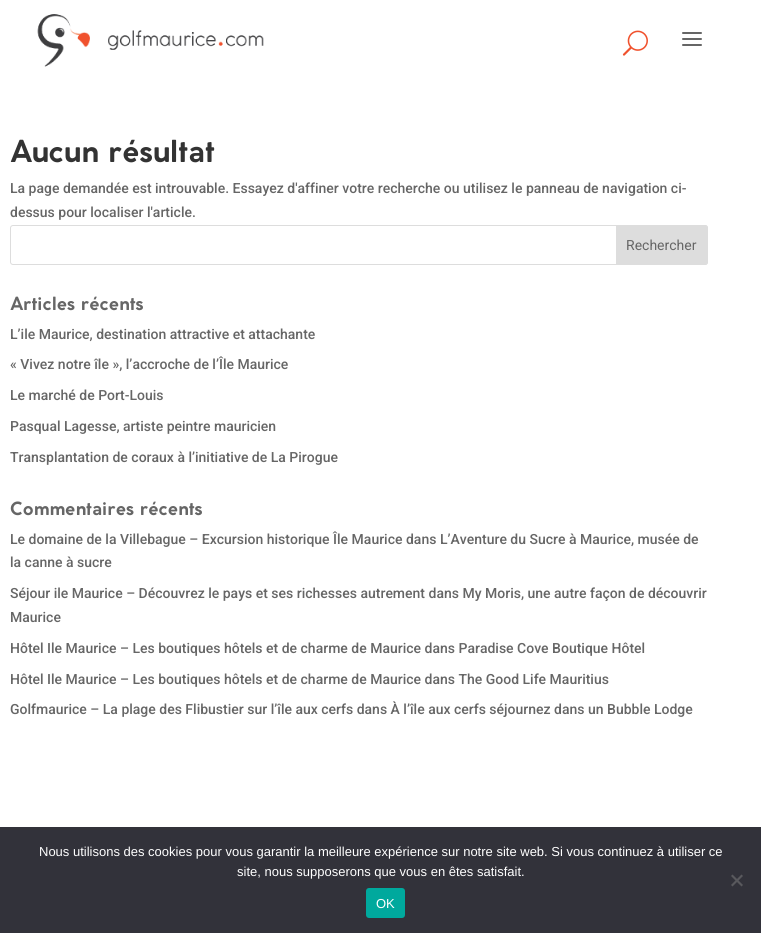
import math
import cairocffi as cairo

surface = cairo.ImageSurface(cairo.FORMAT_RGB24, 761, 933)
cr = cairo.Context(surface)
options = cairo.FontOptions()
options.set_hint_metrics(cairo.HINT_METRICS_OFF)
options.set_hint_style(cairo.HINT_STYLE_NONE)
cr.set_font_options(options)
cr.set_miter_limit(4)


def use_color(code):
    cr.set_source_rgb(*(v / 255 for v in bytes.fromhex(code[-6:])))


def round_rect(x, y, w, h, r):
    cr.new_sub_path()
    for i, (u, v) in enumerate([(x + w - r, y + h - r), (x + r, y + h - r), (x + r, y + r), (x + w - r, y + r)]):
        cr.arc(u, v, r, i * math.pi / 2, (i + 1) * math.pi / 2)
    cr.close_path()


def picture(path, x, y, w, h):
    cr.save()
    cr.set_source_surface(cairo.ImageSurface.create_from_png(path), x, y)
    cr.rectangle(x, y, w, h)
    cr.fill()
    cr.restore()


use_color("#ffffff")
cr.paint()
picture("img1.png", 37, 14, 227, 53)
picture("img2.png", 622, 30, 26, 26)
picture("img3.png", 682, 32, 20, 14)
cr.select_font_face("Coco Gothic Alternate", cairo.FONT_SLANT_NORMAL, cairo.FONT_WEIGHT_BOLD)
cr.set_font_size(30)
use_color("#333333")
cr.move_to(10, 162)
cr.show_text("Aucun résultat")
cr.select_font_face("Roboto Medium")
cr.set_font_size(14)
use_color("#666666")
cr.move_to(10, 193)
cr.show_text("La page demandée est introuvable. Essayez d'affiner votre recherche ou utilisez le panneau de navigation ci-")
cr.move_to(10, 217)
cr.show_text("dessus pour localiser l'article.")
round_rect(10.5, 225.5, 697, 39, 2.5)
use_color("#dddddd")
cr.set_line_width(1)
cr.stroke()
cr.new_path()
cr.move_to(616.5, 225.5)
cr.line_to(705, 225.5)
cr.curve_to(706.5, 225.5, 707.5, 226.5, 707.5, 228)
cr.line_to(707.5, 262)
cr.curve_to(707.5, 263.5, 706.5, 264.5, 705, 264.5)
cr.line_to(616.5, 264.5)
cr.close_path()
cr.fill_preserve()
cr.stroke()
cr.select_font_face("Roboto")
use_color("#666666")
cr.move_to(626, 250)
cr.show_text("Rechercher")
cr.select_font_face("Coco Gothic Alternate", cairo.FONT_SLANT_NORMAL, cairo.FONT_WEIGHT_BOLD)
cr.set_font_size(18)
cr.move_to(10, 310)
cr.show_text("Articles récents")
cr.select_font_face("Roboto Medium")
cr.set_font_size(14)
cr.move_to(10, 339)
cr.show_text("L’ile Maurice, destination attractive et attachante")
cr.move_to(10, 369)
cr.show_text("« Vivez notre île », l’accroche de l’Île Maurice")
cr.move_to(10, 400)
cr.show_text("Le marché de Port-Louis")
cr.move_to(10, 431)
cr.show_text("Pasqual Lagesse, artiste peintre mauricien")
cr.move_to(10, 462)
cr.show_text("Transplantation de coraux à l’initiative de La Pirogue")
cr.select_font_face("Coco Gothic Alternate", cairo.FONT_SLANT_NORMAL, cairo.FONT_WEIGHT_BOLD)
cr.set_font_size(18)
cr.move_to(10, 515)
cr.show_text("Commentaires récents")
cr.select_font_face("Roboto Medium")
cr.set_font_size(14)
cr.move_to(10, 544)
cr.show_text("Le domaine de la Villebague – Excursion historique Île Maurice dans L’Aventure du Sucre à Maurice, musée de")
cr.move_to(10, 567)
cr.show_text("la canne à sucre")
cr.move_to(10, 598)
cr.show_text("Séjour ile Maurice – Découvrez le pays et ses richesses autrement dans My Moris, une autre façon de découvrir")
cr.move_to(10, 622)
cr.show_text("Maurice")
cr.move_to(10, 653)
cr.show_text("Hôtel Ile Maurice – Les boutiques hôtels et de charme de Maurice dans Paradise Cove Boutique Hôtel")
cr.move_to(10, 684)
cr.show_text("Hôtel Ile Maurice – Les boutiques hôtels et de charme de Maurice dans The Good Life Mauritius")
cr.move_to(10, 714)
cr.show_text("Golfmaurice – La plage des Flibustier sur l’île aux cerfs dans À l’île aux cerfs séjournez dans un Bubble Lodge")
use_color("#32323a")
cr.rectangle(0, 827, 761, 106)
cr.fill()
cr.select_font_face("Liberation Sans")
cr.set_font_size(13)
use_color("#ffffff")
cr.move_to(39, 856)
cr.show_text("Nous utilisons des cookies pour vous garantir la meilleure expérience sur notre site web. Si vous continuez à utiliser ce")
cr.move_to(237, 876)
cr.show_text("site, nous supposerons que vous en êtes satisfait.")
use_color("#59595d")
cr.new_path()
cr.move_to(741.5, 874.5)
cr.line_to(743, 876)
cr.line_to(732.5, 886.5)
cr.line_to(731, 885)
cr.close_path()
cr.fill()
cr.new_path()
cr.move_to(731, 876)
cr.line_to(732.5, 874.5)
cr.line_to(743, 885)
cr.line_to(741.5, 886.5)
cr.close_path()
cr.fill()
use_color("#00a99d")
round_rect(366, 888, 39, 30, 3)
cr.fill()
use_color("#ffffff")
cr.move_to(376, 908)
cr.show_text("OK")
surface.write_to_png("result.png")
